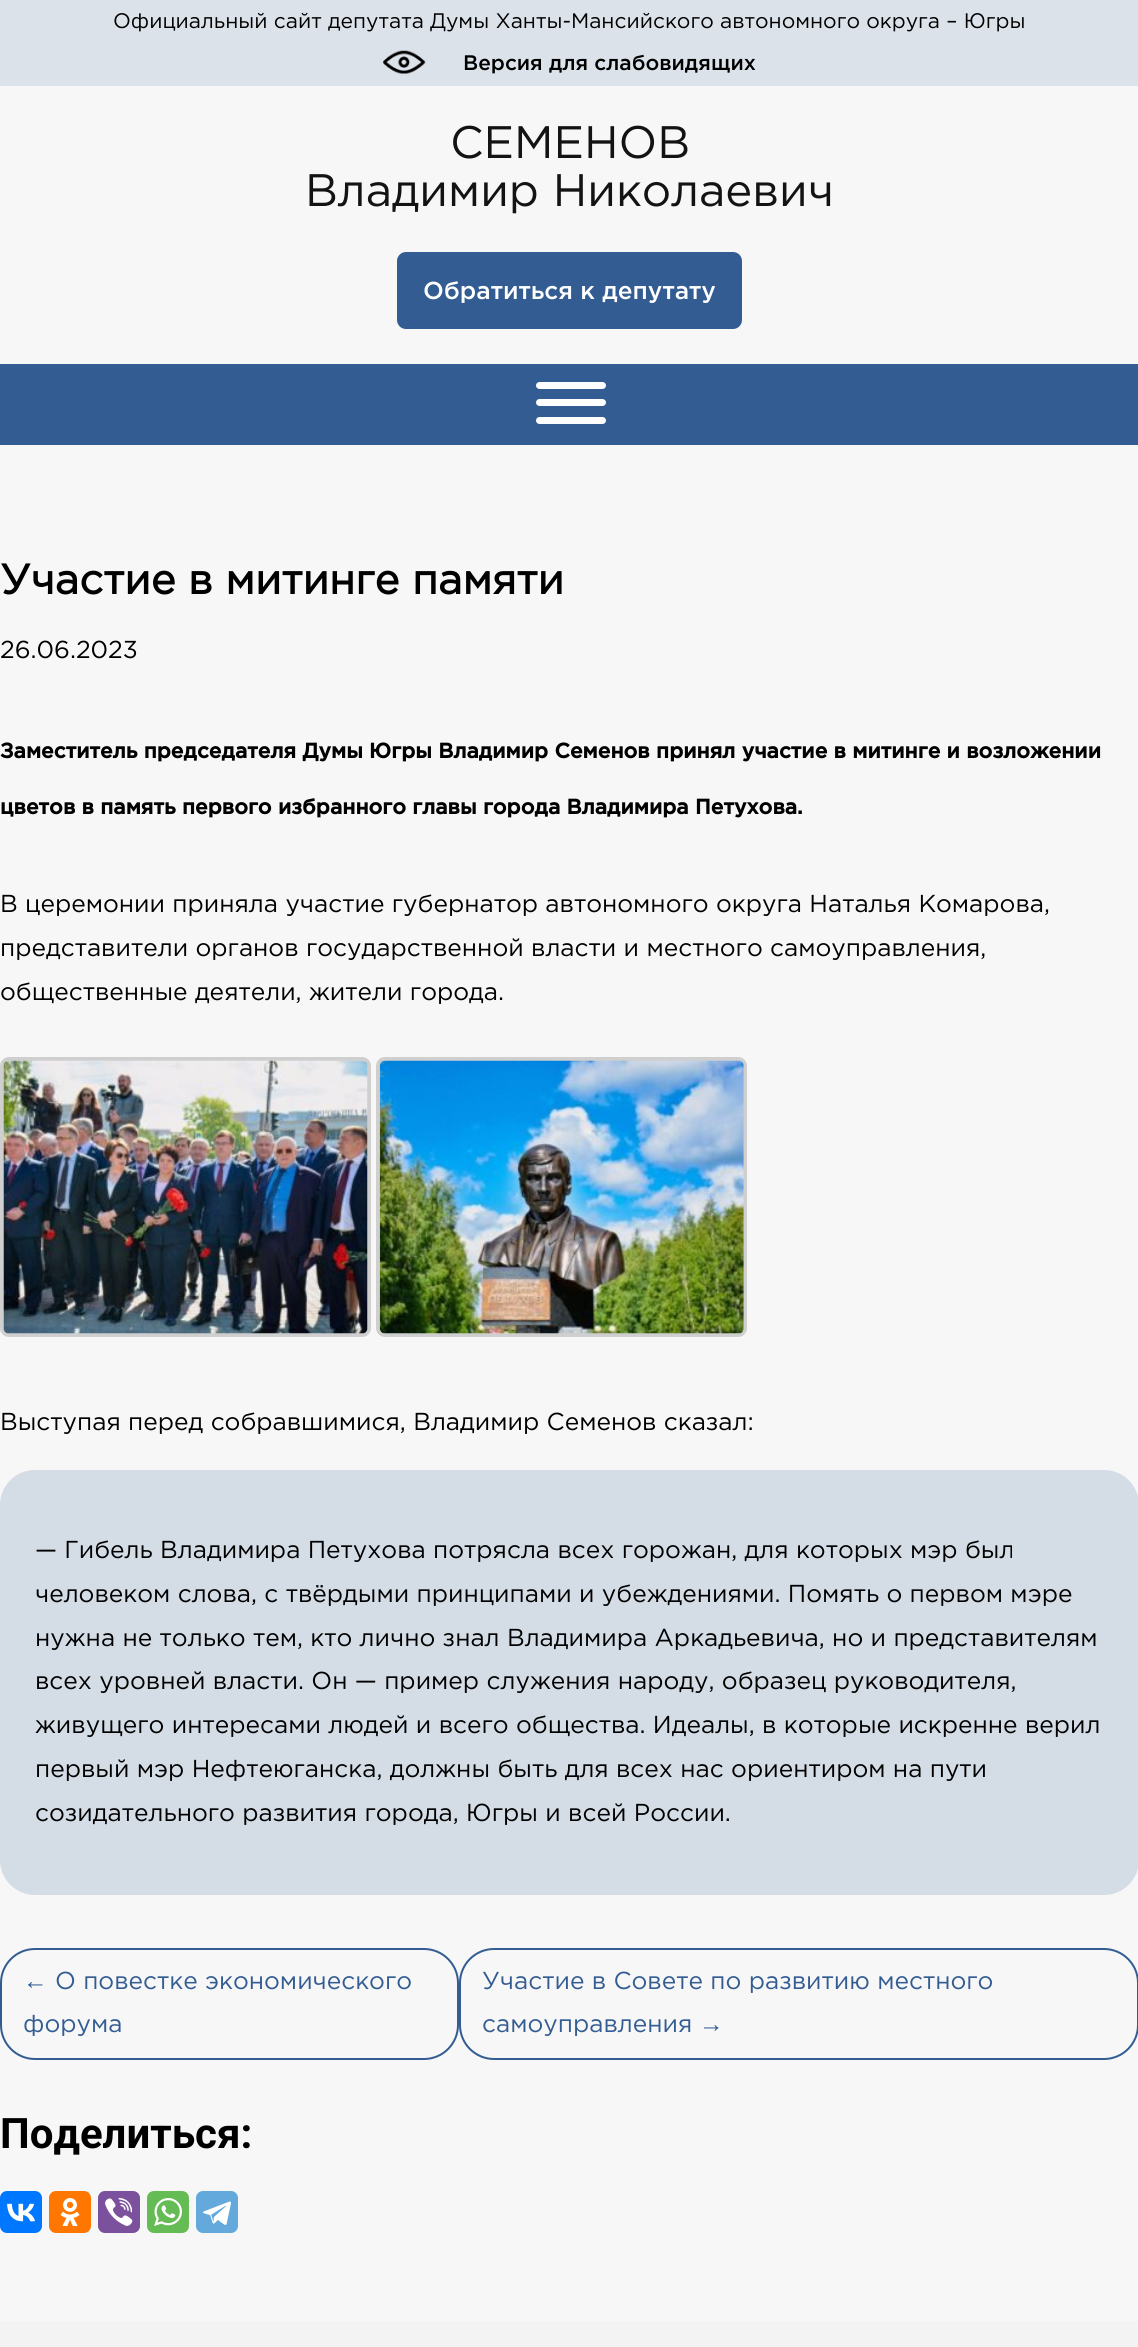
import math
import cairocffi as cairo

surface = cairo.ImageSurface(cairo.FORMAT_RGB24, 1138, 2347)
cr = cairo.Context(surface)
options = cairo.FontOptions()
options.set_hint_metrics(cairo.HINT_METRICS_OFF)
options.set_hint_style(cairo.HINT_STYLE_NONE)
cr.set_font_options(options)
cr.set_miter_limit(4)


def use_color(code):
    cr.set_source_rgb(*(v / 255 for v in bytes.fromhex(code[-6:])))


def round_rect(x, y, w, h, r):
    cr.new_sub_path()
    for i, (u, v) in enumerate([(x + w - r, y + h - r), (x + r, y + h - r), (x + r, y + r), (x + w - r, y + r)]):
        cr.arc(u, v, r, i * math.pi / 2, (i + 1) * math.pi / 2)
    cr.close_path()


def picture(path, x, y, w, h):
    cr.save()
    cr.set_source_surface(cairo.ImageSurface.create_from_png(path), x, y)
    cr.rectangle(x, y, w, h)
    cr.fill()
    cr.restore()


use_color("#f7f7f7")
cr.paint()
use_color("#dce2e9")
cr.rectangle(0, 0, 1138, 86)
cr.fill()
cr.select_font_face("Gotham")
cr.set_font_size(21)
use_color("#000000")
cr.move_to(113, 28)
cr.show_text("Официальный сайт депутата Думы Ханты-Мансийского автономного округа – Югры")
picture("img1.png", 383, 50, 43, 24)
cr.select_font_face("Gotham Medium")
cr.move_to(463, 70)
cr.show_text("Версия для слабовидящих")
cr.select_font_face("Gotham")
cr.set_font_size(45.5)
use_color("#131313")
cr.move_to(450, 158)
cr.show_text("СЕМЕНОВ")
cr.move_to(305, 206)
cr.show_text("Владимир Николаевич")
use_color("#325c92")
round_rect(397, 252, 345, 77, 9)
cr.fill()
cr.select_font_face("Gotham Medium")
cr.set_font_size(24.5)
use_color("#ffffff")
cr.move_to(423, 299)
cr.show_text("Обратиться к депутату")
use_color("#325c92")
cr.rectangle(0, 364, 1138, 81)
cr.fill()
use_color("#ffffff")
round_rect(536, 382, 70, 7, 3.5)
cr.fill()
round_rect(536, 399, 70, 7, 3.5)
cr.fill()
round_rect(536, 417, 70, 7, 3.5)
cr.fill()
cr.select_font_face("Gotham", cairo.FONT_SLANT_NORMAL, cairo.FONT_WEIGHT_BOLD)
cr.set_font_size(42)
use_color("#000000")
cr.move_to(0, 594)
cr.show_text("Участие в митинге памяти")
cr.select_font_face("Gotham")
cr.set_font_size(24.5)
cr.move_to(0, 658)
cr.show_text("26.06.2023")
cr.select_font_face("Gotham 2", cairo.FONT_SLANT_NORMAL, cairo.FONT_WEIGHT_BOLD)
cr.set_font_size(21)
cr.move_to(0, 758)
cr.show_text("Заместитель председателя Думы Югры Владимир Семенов принял участие в митинге и возложении")
cr.move_to(0, 814)
cr.show_text("цветов в память первого избранного главы города Владимира Петухова.")
cr.select_font_face("Gotham")
cr.set_font_size(24.5)
cr.move_to(0, 912)
cr.show_text("В церемонии приняла участие губернатор автономного округа Наталья Комарова,")
cr.move_to(0, 956)
cr.show_text("представители органов государственной власти и местного самоуправления,")
cr.move_to(0, 1000)
cr.show_text("общественные деятели, жители города.")
round_rect(2, 1059, 367, 276, 7)
use_color("#cfcfcf")
cr.set_line_width(4)
cr.stroke()
picture("img2.png", 3, 1060, 365, 274)
round_rect(378, 1059, 367, 276, 7)
cr.stroke()
picture("img3.png", 379, 1060, 365, 274)
use_color("#000000")
cr.move_to(0, 1430)
cr.show_text("Выступая перед собравшимися, Владимир Семенов сказал:")
use_color("#d4dce6")
round_rect(0, 1470, 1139, 425, 35)
cr.fill()
use_color("#000000")
cr.move_to(35, 1558)
cr.show_text("— Гибель Владимира Петухова потрясла всех горожан, для которых мэр был")
cr.move_to(35, 1602)
cr.show_text("человеком слова, с твёрдыми принципами и убеждениями. Помять о первом мэре")
cr.move_to(35, 1646)
cr.show_text("нужна не только тем, кто лично знал Владимира Аркадьевича, но и представителям")
cr.move_to(35, 1689)
cr.show_text("всех уровней власти. Он — пример служения народу, образец руководителя,")
cr.move_to(35, 1733)
cr.show_text("живущего интересами людей и всего общества. Идеалы, в которые искренне верил")
cr.move_to(35, 1777)
cr.show_text("первый мэр Нефтеюганска, должны быть для всех нас ориентиром на пути")
cr.move_to(35, 1821)
cr.show_text("созидательного развития города, Югры и всей России.")
round_rect(1, 1949, 457, 110, 34)
use_color("#325c92")
cr.set_line_width(2)
cr.stroke()
cr.select_font_face("Liberation Serif")
cr.move_to(23, 1989)
cr.show_text("←")
cr.select_font_face("Gotham")
cr.move_to(55, 1989)
cr.show_text("О повестке экономического")
cr.move_to(23, 2032)
cr.show_text("форума")
round_rect(460, 1949, 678, 110, 34)
cr.stroke()
cr.move_to(482, 1989)
cr.show_text("Участие в Совете по развитию местного")
cr.move_to(482, 2032)
cr.show_text("самоуправления")
cr.select_font_face("Liberation Serif")
cr.move_to(699, 2032)
cr.show_text("→")
cr.select_font_face("Roboto", cairo.FONT_SLANT_NORMAL, cairo.FONT_WEIGHT_BOLD)
cr.set_font_size(42)
use_color("#000000")
cr.move_to(0, 2148)
cr.show_text("Поделиться:")
use_color("#0077ff")
round_rect(0, 2191, 42, 42, 7)
cr.fill()
picture("img4.png", 7, 2203, 28, 19)
use_color("#ff7700")
round_rect(49, 2191, 42, 42, 7)
cr.fill()
picture("img5.png", 60, 2198, 20, 28)
use_color("#7b519d")
round_rect(98, 2191, 42, 42, 7)
cr.fill()
picture("img6.png", 105, 2198, 28, 28)
use_color("#65bc54")
round_rect(147, 2191, 42, 42, 7)
cr.fill()
picture("img7.png", 154, 2198, 28, 28)
use_color("#64a9dc")
round_rect(196, 2191, 42, 42, 7)
cr.fill()
picture("img8.png", 203, 2201, 28, 24)
use_color("#f3f3f3")
cr.rectangle(0, 2321, 1138, 26)
cr.fill()
surface.write_to_png("result.png")
